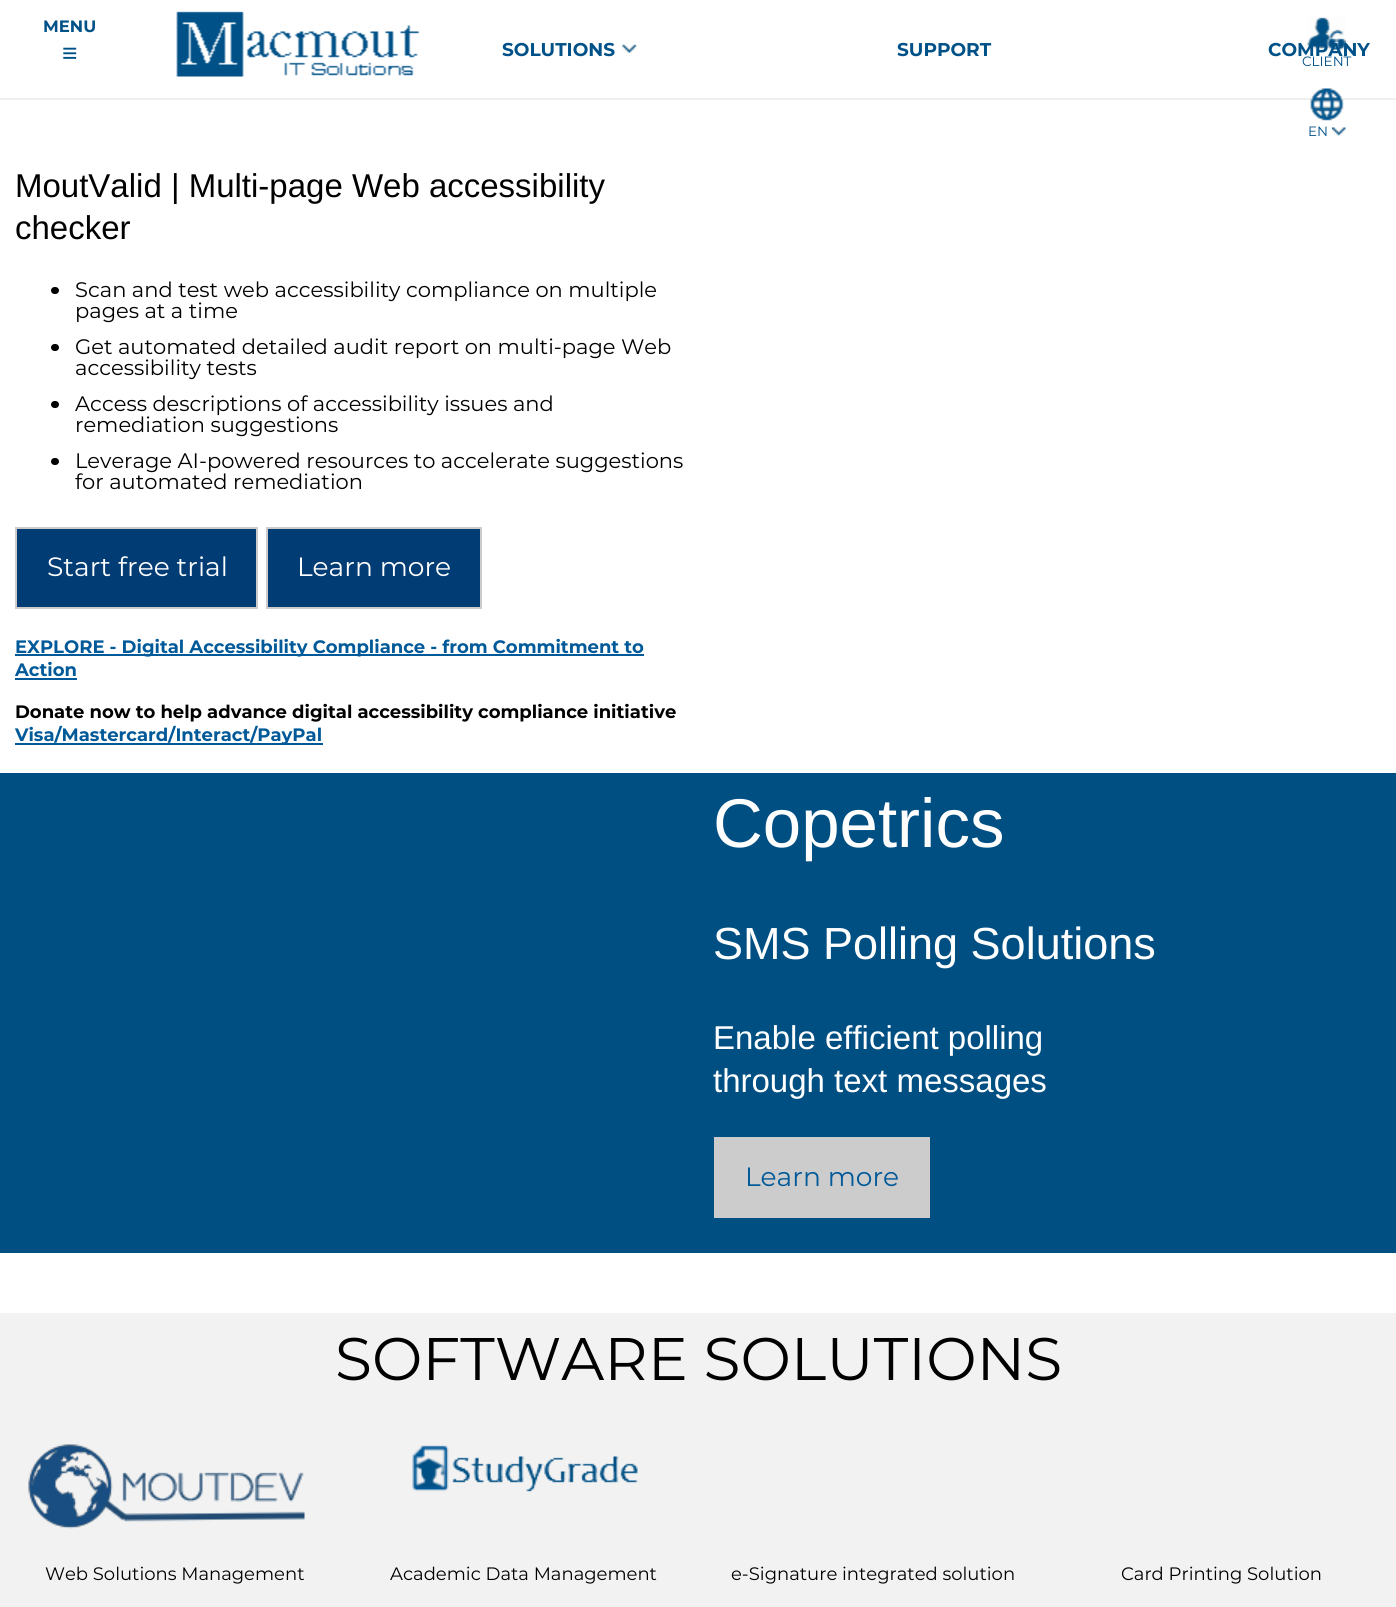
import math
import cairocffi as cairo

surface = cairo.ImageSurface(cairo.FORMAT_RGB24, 1396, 1607)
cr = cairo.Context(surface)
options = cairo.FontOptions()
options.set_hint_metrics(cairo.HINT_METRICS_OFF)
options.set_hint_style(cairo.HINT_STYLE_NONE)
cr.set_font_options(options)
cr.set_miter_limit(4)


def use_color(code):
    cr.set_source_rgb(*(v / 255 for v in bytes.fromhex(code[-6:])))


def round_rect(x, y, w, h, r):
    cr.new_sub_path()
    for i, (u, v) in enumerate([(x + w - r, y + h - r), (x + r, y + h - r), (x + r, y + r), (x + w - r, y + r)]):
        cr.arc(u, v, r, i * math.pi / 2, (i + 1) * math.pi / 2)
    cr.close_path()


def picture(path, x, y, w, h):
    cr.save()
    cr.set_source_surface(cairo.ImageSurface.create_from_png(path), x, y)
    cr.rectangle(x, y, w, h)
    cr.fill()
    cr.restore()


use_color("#ffffff")
cr.paint()
use_color("#efefef")
cr.rectangle(0, 98, 1396, 2)
cr.fill()
cr.select_font_face("Montserrat", cairo.FONT_SLANT_NORMAL, cairo.FONT_WEIGHT_BOLD)
cr.set_font_size(16.5)
use_color("#005188")
cr.move_to(43, 32)
cr.show_text("MENU")
cr.select_font_face("Liberation Sans", cairo.FONT_SLANT_NORMAL, cairo.FONT_WEIGHT_BOLD)
cr.set_font_size(26.5)
cr.move_to(62, 62)
cr.show_text("≡")
picture("img1.png", 176, 11, 244, 66)
picture("img2.png", 1307, 17, 39, 33)
cr.select_font_face("Montserrat")
cr.set_font_size(13.5)
cr.move_to(1302, 66)
cr.show_text("CLIENT")
picture("img3.png", 1310, 88, 34, 33)
cr.move_to(1308, 136)
cr.show_text("EN")
picture("img4.png", 1332, 127, 14, 9)
cr.select_font_face("Montserrat", cairo.FONT_SLANT_NORMAL, cairo.FONT_WEIGHT_BOLD)
cr.set_font_size(18.5)
cr.move_to(502, 56)
cr.show_text("SOLUTIONS")
picture("img5.png", 622, 44, 15, 9)
cr.move_to(897, 56)
cr.show_text("SUPPORT")
cr.move_to(1268, 56)
cr.show_text("COMPANY")
cr.select_font_face("Liberation Sans")
cr.set_font_size(33)
use_color("#000000")
cr.move_to(15, 197)
cr.show_text("MoutValid | Multi-page Web accessibility")
cr.move_to(15, 239)
cr.show_text("checker")
round_rect(51, 287, 8, 7, 3.5)
cr.fill()
cr.select_font_face("Montserrat")
cr.set_font_size(21)
cr.move_to(75, 297)
cr.show_text("Scan and test web accessibility compliance on multiple")
cr.move_to(75, 318)
cr.show_text("pages at a time")
round_rect(51, 344, 8, 7, 3.5)
cr.fill()
cr.move_to(75, 354)
cr.show_text("Get automated detailed audit report on multi-page Web")
cr.move_to(75, 375)
cr.show_text("accessibility tests")
round_rect(51, 401, 8, 7, 3.5)
cr.fill()
cr.move_to(75, 411)
cr.show_text("Access descriptions of accessibility issues and")
cr.move_to(75, 432)
cr.show_text("remediation suggestions")
round_rect(51, 458, 8, 7, 3.5)
cr.fill()
cr.move_to(75, 468)
cr.show_text("Leverage AI-powered resources to accelerate suggestions")
cr.move_to(75, 489)
cr.show_text("for automated remediation")
use_color("#013c74")
cr.rectangle(16, 528, 241, 80)
cr.fill_preserve()
use_color("#cccccc")
cr.stroke()
cr.set_font_size(26.5)
use_color("#ffffff")
cr.move_to(47, 576)
cr.show_text("Start free trial")
use_color("#013c74")
cr.rectangle(267, 528, 214, 80)
cr.fill_preserve()
use_color("#cccccc")
cr.stroke()
use_color("#ffffff")
cr.move_to(297, 576)
cr.show_text("Learn more")
use_color("#005999")
cr.rectangle(15, 654, 629, 2)
cr.fill()
cr.select_font_face("Montserrat", cairo.FONT_SLANT_NORMAL, cairo.FONT_WEIGHT_BOLD)
cr.set_font_size(18)
cr.move_to(15, 653)
cr.show_text("EXPLORE - Digital Accessibility Compliance - from Commitment to")
cr.move_to(15, 676)
cr.show_text("Action")
cr.rectangle(15, 678, 62, 2)
cr.fill()
use_color("#000000")
cr.move_to(15, 718)
cr.show_text("Donate now to help advance digital accessibility compliance initiative")
use_color("#005999")
cr.rectangle(15, 743, 308, 2)
cr.fill()
cr.move_to(15, 741)
cr.show_text("Visa/Mastercard/Interact/PayPal")
use_color("#004f83")
cr.rectangle(0, 773, 1396, 480)
cr.fill()
cr.select_font_face("Liberation Sans")
cr.set_font_size(69)
use_color("#ffffff")
cr.move_to(713, 847)
cr.show_text("Copetrics")
cr.set_font_size(45)
cr.move_to(713, 959)
cr.show_text("SMS Polling Solutions")
cr.set_font_size(33)
cr.move_to(713, 1049)
cr.show_text("Enable efficient polling")
cr.move_to(713, 1092)
cr.show_text("through text messages")
use_color("#cccccc")
cr.rectangle(714, 1137, 216, 81)
cr.fill()
cr.select_font_face("Montserrat")
cr.set_font_size(26.5)
use_color("#005999")
cr.move_to(745, 1186)
cr.show_text("Learn more")
use_color("#f2f2f2")
cr.rectangle(0, 1313, 1396, 294)
cr.fill()
cr.set_font_size(60)
use_color("#000000")
cr.move_to(335, 1380)
cr.show_text("SOFTWARE SOLUTIONS")
picture("img6.png", 28, 1444, 277, 85)
cr.set_font_size(18)
cr.move_to(45, 1580)
cr.show_text("Web Solutions Management")
picture("img7.png", 412, 1445, 226, 47)
cr.move_to(390, 1580)
cr.show_text("Academic Data Management")
cr.move_to(731, 1580)
cr.show_text("e-Signature integrated solution")
cr.move_to(1121, 1580)
cr.show_text("Card Printing Solution")
surface.write_to_png("result.png")
